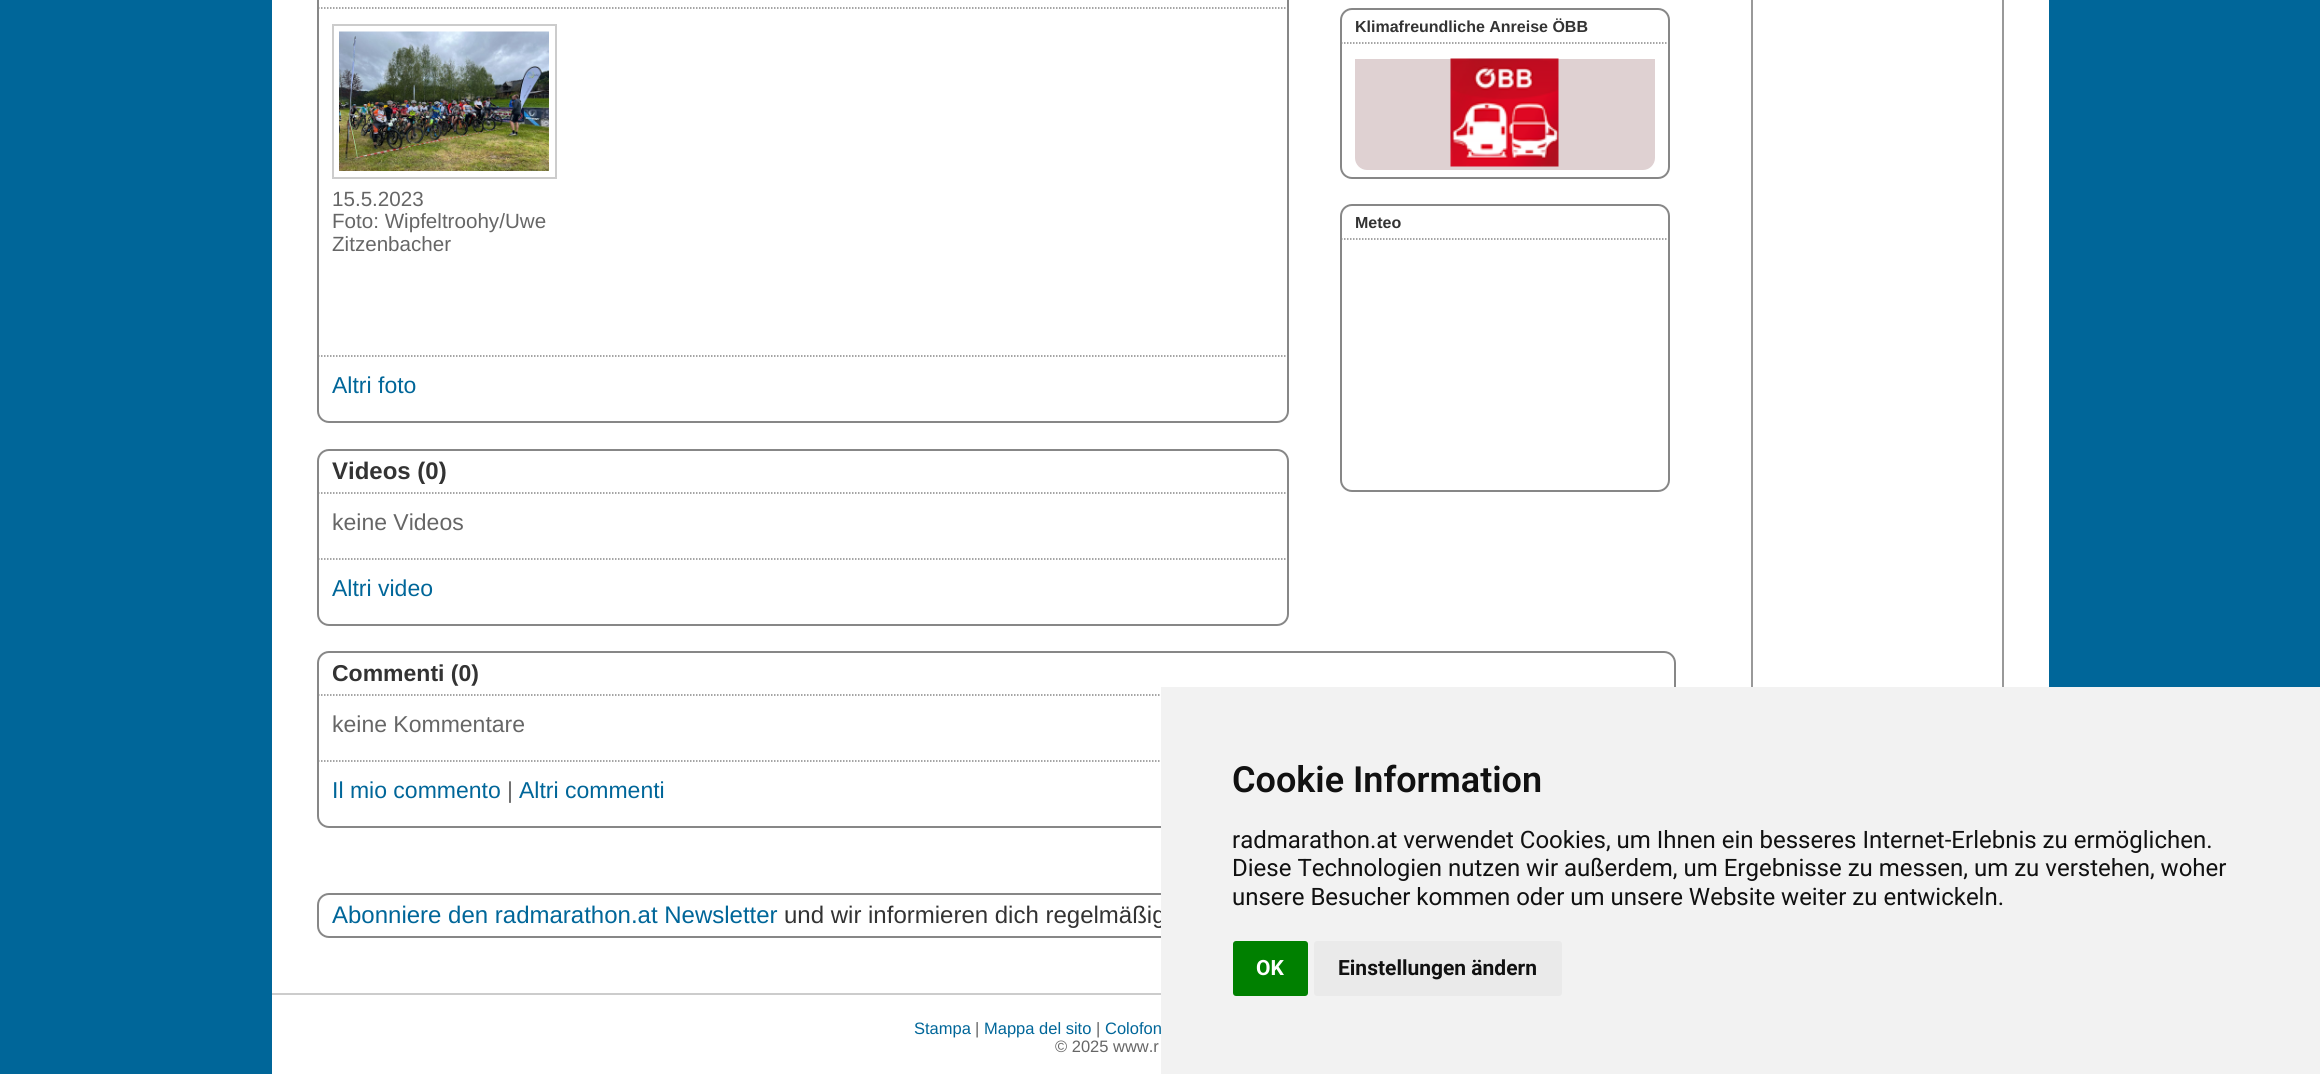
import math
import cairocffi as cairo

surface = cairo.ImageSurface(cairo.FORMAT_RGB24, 2320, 1074)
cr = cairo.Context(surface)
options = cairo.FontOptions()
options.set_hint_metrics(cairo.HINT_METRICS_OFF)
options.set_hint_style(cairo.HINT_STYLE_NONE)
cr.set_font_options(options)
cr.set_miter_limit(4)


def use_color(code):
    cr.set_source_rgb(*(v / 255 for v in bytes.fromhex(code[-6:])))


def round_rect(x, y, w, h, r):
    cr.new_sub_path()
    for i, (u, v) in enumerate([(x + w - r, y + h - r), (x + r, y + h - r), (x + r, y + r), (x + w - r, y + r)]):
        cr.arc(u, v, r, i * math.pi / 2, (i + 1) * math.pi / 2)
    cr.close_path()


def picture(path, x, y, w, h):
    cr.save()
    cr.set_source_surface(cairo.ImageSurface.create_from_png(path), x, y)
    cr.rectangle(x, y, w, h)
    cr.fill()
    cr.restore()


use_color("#006699")
cr.paint()
use_color("#ffffff")
cr.rectangle(272, 0, 1777, 993)
cr.fill()
round_rect(1341, 9, 328, 169, 11)
use_color("#878787")
cr.stroke()
cr.select_font_face("Liberation Sans", cairo.FONT_SLANT_NORMAL, cairo.FONT_WEIGHT_BOLD)
cr.set_font_size(16)
use_color("#333333")
cr.move_to(1355, 32)
cr.show_text("Klimafreundliche Anreise ÖBB")
cr.new_path()
cr.move_to(1341, 43)
cr.line_to(1668, 43)
use_color("#878787")
cr.set_line_width(1.5)
cr.set_dash([1.5, 1.5])
cr.stroke()
use_color("#dfd1d2")
cr.new_path()
cr.move_to(1355, 59)
cr.line_to(1655, 59)
cr.line_to(1655, 158)
cr.curve_to(1655, 164.5, 1649.5, 170, 1643, 170)
cr.line_to(1367, 170)
cr.curve_to(1360.5, 170, 1355, 164.5, 1355, 158)
cr.close_path()
cr.fill()
picture("img1.png", 1450, 58, 109, 109)
round_rect(1341, 205, 328, 286, 11)
use_color("#878787")
cr.set_line_width(2)
cr.set_dash([])
cr.stroke()
use_color("#333333")
cr.move_to(1355, 228)
cr.show_text("Meteo")
cr.new_path()
cr.move_to(1341, 239)
cr.line_to(1668, 239)
use_color("#878787")
cr.set_line_width(1.5)
cr.set_dash([1.5, 1.5])
cr.stroke()
round_rect(318, -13, 970, 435, 11)
cr.set_line_width(2)
cr.set_dash([])
cr.stroke()
cr.new_path()
cr.move_to(318, 8)
cr.line_to(1287, 8)
cr.set_line_width(1.5)
cr.set_dash([1.5, 1.5])
cr.stroke()
cr.rectangle(333, 25, 223, 153)
use_color("#cccccc")
cr.set_line_width(2)
cr.set_dash([])
cr.stroke()
picture("img2.png", 339, 31, 210, 140)
cr.select_font_face("Liberation Sans")
cr.set_font_size(20.6)
use_color("#666666")
cr.move_to(332, 206)
cr.show_text("15.5.2023")
cr.move_to(332, 228)
cr.show_text("Foto: Wipfeltroohy/Uwe")
cr.move_to(332, 251)
cr.show_text("Zitzenbacher")
cr.new_path()
cr.move_to(318, 356)
cr.line_to(1287, 356)
use_color("#878787")
cr.set_line_width(1.5)
cr.set_dash([1.5, 1.5])
cr.stroke()
cr.set_font_size(23)
use_color("#006699")
cr.move_to(332, 393)
cr.show_text("Altri foto")
round_rect(318, 450, 970, 175, 11)
use_color("#878787")
cr.set_line_width(2)
cr.set_dash([])
cr.stroke()
cr.select_font_face("Liberation Sans", cairo.FONT_SLANT_NORMAL, cairo.FONT_WEIGHT_BOLD)
cr.set_font_size(24)
use_color("#333333")
cr.move_to(332, 479)
cr.show_text("Videos (0)")
cr.new_path()
cr.move_to(318, 493)
cr.line_to(1287, 493)
use_color("#878787")
cr.set_line_width(1.5)
cr.set_dash([1.5, 1.5])
cr.stroke()
cr.select_font_face("Liberation Sans")
cr.set_font_size(23)
use_color("#666666")
cr.move_to(332, 530)
cr.show_text("keine Videos")
cr.new_path()
cr.move_to(318, 559)
cr.line_to(1287, 559)
use_color("#878787")
cr.stroke()
use_color("#006699")
cr.move_to(332, 596)
cr.show_text("Altri video")
round_rect(318, 652, 1357, 175, 11)
use_color("#878787")
cr.set_line_width(2)
cr.set_dash([])
cr.stroke()
cr.select_font_face("Liberation Sans", cairo.FONT_SLANT_NORMAL, cairo.FONT_WEIGHT_BOLD)
use_color("#333333")
cr.move_to(332, 681)
cr.show_text("Commenti (0)")
cr.new_path()
cr.move_to(318, 695)
cr.line_to(1674, 695)
use_color("#878787")
cr.set_line_width(1.5)
cr.set_dash([1.5, 1.5])
cr.stroke()
cr.select_font_face("Liberation Sans")
use_color("#666666")
cr.move_to(332, 732)
cr.show_text("keine Kommentare")
cr.new_path()
cr.move_to(318, 761)
cr.line_to(1674, 761)
use_color("#878787")
cr.stroke()
use_color("#006699")
cr.move_to(332, 798)
cr.show_text("Il mio commento")
use_color("#666666")
cr.move_to(507, 798)
cr.show_text("|")
use_color("#006699")
cr.move_to(519, 798)
cr.show_text("Altri commenti")
round_rect(318, 894, 1357, 43, 11)
use_color("#878787")
cr.set_line_width(2)
cr.set_dash([])
cr.stroke()
cr.set_font_size(24)
use_color("#006699")
cr.move_to(332, 923)
cr.show_text("Abonniere den radmarathon.at Newsletter")
use_color("#333333")
cr.move_to(784, 923)
cr.show_text("und wir informieren dich regelmäßig")
cr.rectangle(1752, -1, 251, 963)
use_color("#999999")
cr.stroke()
use_color("#f2f2f2")
cr.rectangle(1161, 687, 1159, 387)
cr.fill()
cr.select_font_face("Roboto SemiBold")
cr.set_font_size(36)
use_color("#111111")
cr.move_to(1232, 792)
cr.show_text("Cookie Information")
cr.select_font_face("Roboto")
cr.set_font_size(24)
cr.move_to(1232, 848)
cr.show_text("radmarathon.at verwendet Cookies, um Ihnen ein besseres Internet-Erlebnis zu ermöglichen.")
cr.move_to(1232, 876)
cr.show_text("Diese Technologien nutzen wir außerdem, um Ergebnisse zu messen, um zu verstehen, woher")
cr.move_to(1232, 905)
cr.show_text("unsere Besucher kommen oder um unsere Website weiter zu entwickeln.")
use_color("#008000")
round_rect(1233, 941, 75, 55, 3)
cr.fill()
cr.select_font_face("Roboto", cairo.FONT_SLANT_NORMAL, cairo.FONT_WEIGHT_BOLD)
cr.set_font_size(21)
use_color("#ffffff")
cr.move_to(1256, 975)
cr.show_text("OK")
use_color("#eaeaea")
round_rect(1314, 941, 248, 55, 3)
cr.fill()
use_color("#111111")
cr.move_to(1338, 975)
cr.show_text("Einstellungen ändern")
use_color("#ffffff")
cr.rectangle(272, 995, 889, 79)
cr.fill()
use_color("#cccccc")
cr.rectangle(272, 993, 889, 2)
cr.fill()
cr.select_font_face("Liberation Sans")
cr.set_font_size(16.5)
use_color("#006699")
cr.move_to(914, 1034)
cr.show_text("Stampa")
use_color("#666666")
cr.move_to(975, 1034)
cr.show_text("|")
use_color("#006699")
cr.move_to(984, 1034)
cr.show_text("Mappa del sito")
use_color("#666666")
cr.move_to(1096, 1034)
cr.show_text("|")
use_color("#006699")
cr.move_to(1105, 1034)
cr.show_text("Colofon")
use_color("#666666")
cr.move_to(1055, 1052)
cr.show_text("© 2025 www.r")
surface.write_to_png("result.png")
